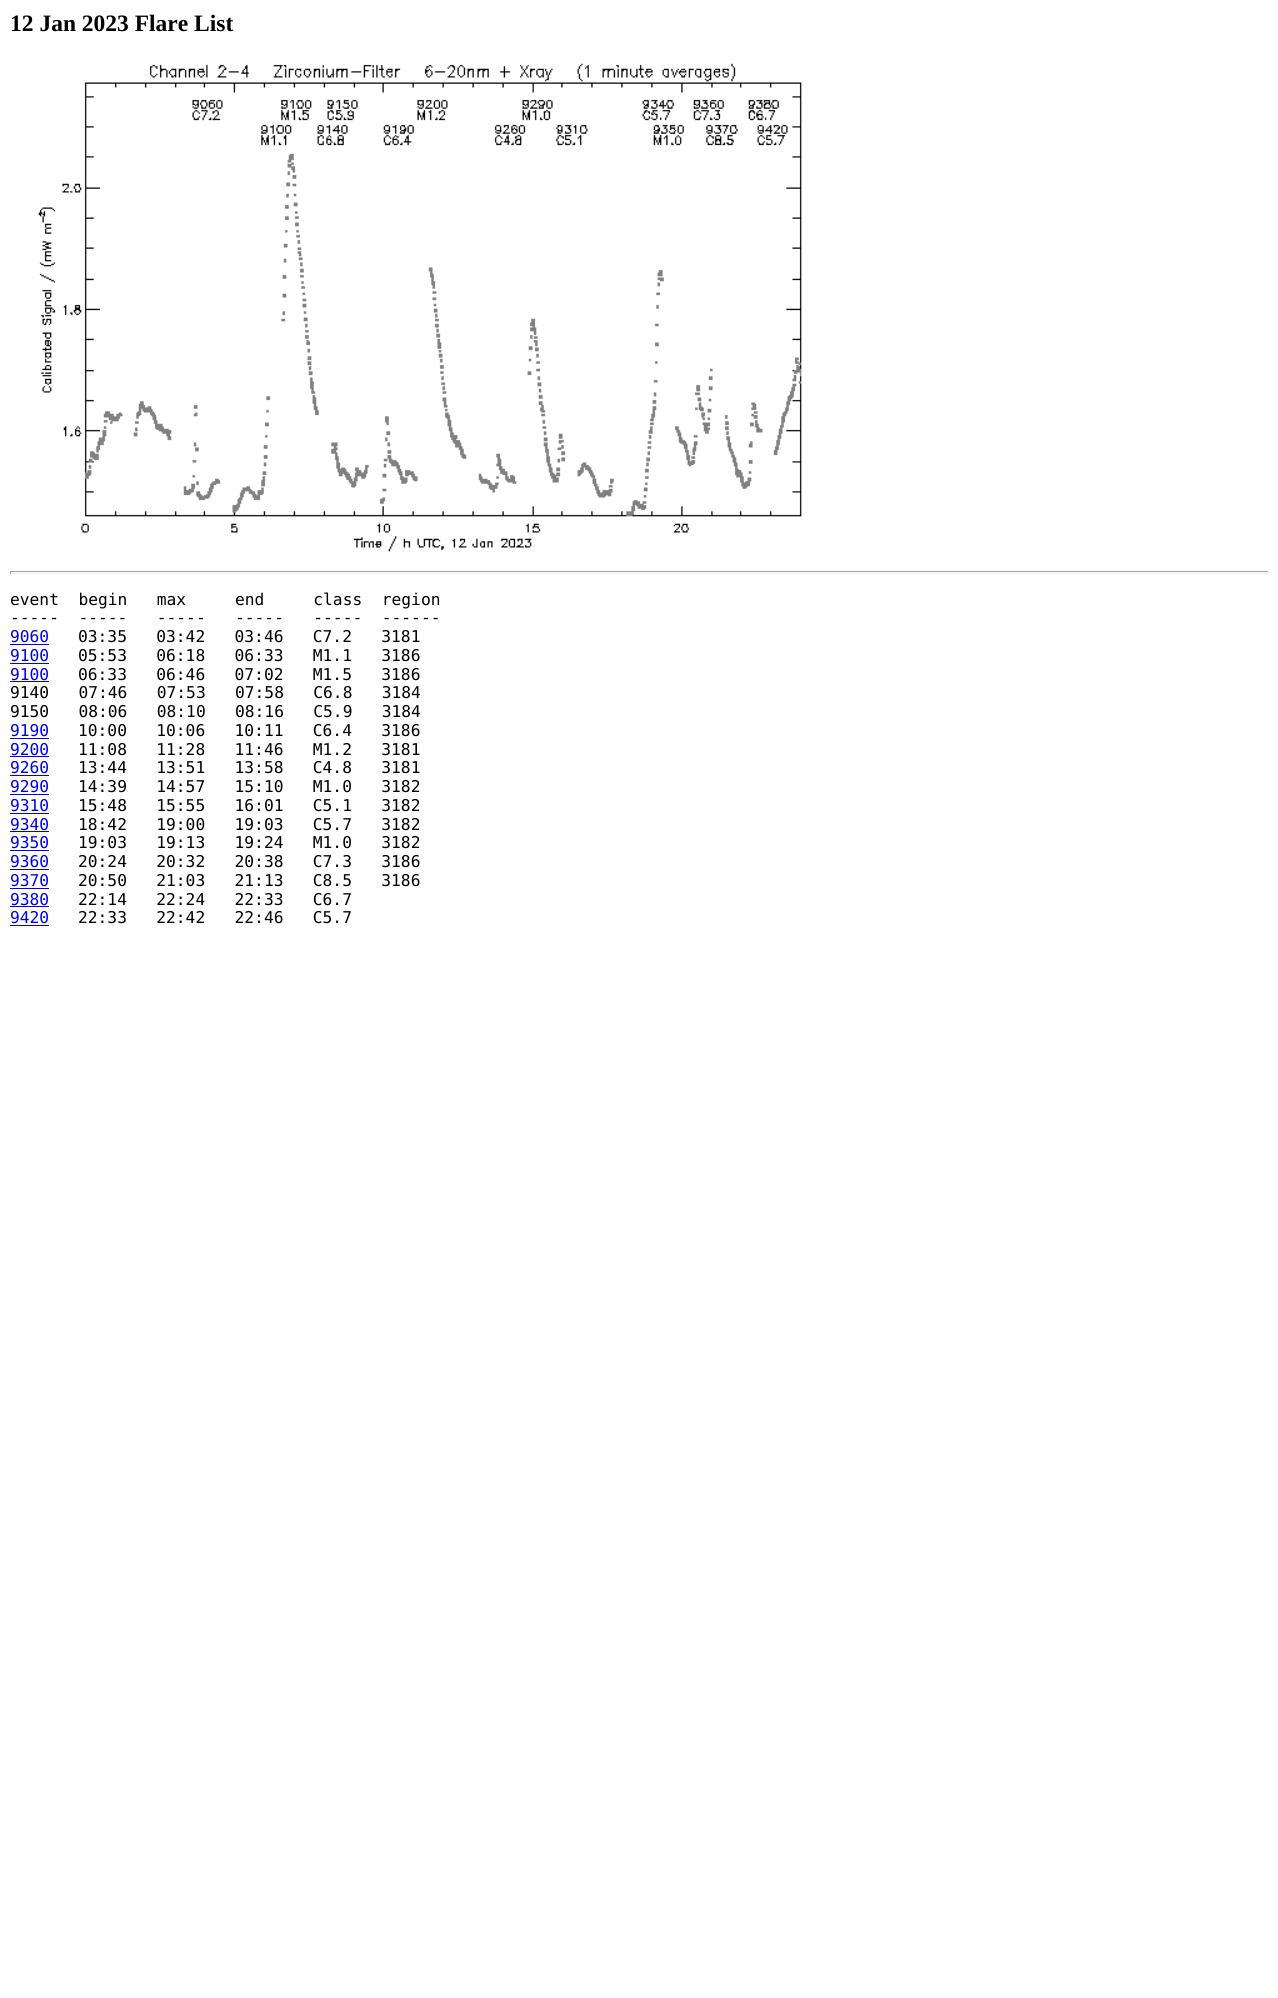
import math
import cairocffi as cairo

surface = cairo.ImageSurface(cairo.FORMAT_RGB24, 1278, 1998)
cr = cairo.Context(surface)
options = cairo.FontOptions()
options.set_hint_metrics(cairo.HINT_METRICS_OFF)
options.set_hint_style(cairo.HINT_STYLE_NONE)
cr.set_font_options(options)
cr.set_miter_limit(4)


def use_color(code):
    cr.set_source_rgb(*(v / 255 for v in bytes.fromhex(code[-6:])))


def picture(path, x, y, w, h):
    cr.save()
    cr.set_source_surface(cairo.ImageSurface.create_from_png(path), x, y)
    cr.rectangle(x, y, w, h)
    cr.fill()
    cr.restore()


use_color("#ffffff")
cr.paint()
cr.select_font_face("Liberation Serif", cairo.FONT_SLANT_NORMAL, cairo.FONT_WEIGHT_BOLD)
cr.set_font_size(23.5)
use_color("#000000")
cr.move_to(10, 31)
cr.show_text("12 Jan 2023 Flare List")
picture("img1.png", 38, 63, 764, 489)
use_color("#9f9f9f")
cr.rectangle(10, 571, 1259, 1)
cr.fill()
use_color("#eeeeee")
cr.rectangle(1268, 571, 1, 3)
cr.fill()
cr.rectangle(10, 573, 1259, 1)
cr.fill()
use_color("#9f9f9f")
cr.rectangle(10, 571, 1, 3)
cr.fill()
cr.select_font_face("DejaVu Sans Mono")
cr.set_font_size(16.25)
use_color("#000000")
cr.move_to(10, 605)
cr.show_text("event  begin   max     end     class  region")
cr.move_to(10, 623)
cr.show_text("-----  -----   -----   -----   -----  ------")
use_color("#0000ee")
cr.move_to(10, 642)
cr.show_text("9060")
cr.rectangle(10, 644, 39, 1)
cr.fill()
use_color("#000000")
cr.move_to(78, 642)
cr.show_text("03:35   03:42   03:46   C7.2   3181")
use_color("#0000ee")
cr.move_to(10, 661)
cr.show_text("9100")
cr.rectangle(10, 663, 39, 1)
cr.fill()
use_color("#000000")
cr.move_to(78, 661)
cr.show_text("05:53   06:18   06:33   M1.1   3186")
use_color("#0000ee")
cr.move_to(10, 680)
cr.show_text("9100")
cr.rectangle(10, 681, 39, 1)
cr.fill()
use_color("#000000")
cr.move_to(78, 680)
cr.show_text("06:33   06:46   07:02   M1.5   3186")
cr.move_to(10, 698)
cr.show_text("9140   07:46   07:53   07:58   C6.8   3184")
cr.move_to(10, 717)
cr.show_text("9150   08:06   08:10   08:16   C5.9   3184")
use_color("#0000ee")
cr.move_to(10, 736)
cr.show_text("9190")
cr.rectangle(10, 738, 39, 1)
cr.fill()
use_color("#000000")
cr.move_to(78, 736)
cr.show_text("10:00   10:06   10:11   C6.4   3186")
use_color("#0000ee")
cr.move_to(10, 755)
cr.show_text("9200")
cr.rectangle(10, 756, 39, 1)
cr.fill()
use_color("#000000")
cr.move_to(78, 755)
cr.show_text("11:08   11:28   11:46   M1.2   3181")
use_color("#0000ee")
cr.move_to(10, 773)
cr.show_text("9260")
cr.rectangle(10, 775, 39, 1)
cr.fill()
use_color("#000000")
cr.move_to(78, 773)
cr.show_text("13:44   13:51   13:58   C4.8   3181")
use_color("#0000ee")
cr.move_to(10, 792)
cr.show_text("9290")
cr.rectangle(10, 794, 39, 1)
cr.fill()
use_color("#000000")
cr.move_to(78, 792)
cr.show_text("14:39   14:57   15:10   M1.0   3182")
use_color("#0000ee")
cr.move_to(10, 811)
cr.show_text("9310")
cr.rectangle(10, 813, 39, 1)
cr.fill()
use_color("#000000")
cr.move_to(78, 811)
cr.show_text("15:48   15:55   16:01   C5.1   3182")
use_color("#0000ee")
cr.move_to(10, 830)
cr.show_text("9340")
cr.rectangle(10, 831, 39, 1)
cr.fill()
use_color("#000000")
cr.move_to(78, 830)
cr.show_text("18:42   19:00   19:03   C5.7   3182")
use_color("#0000ee")
cr.move_to(10, 848)
cr.show_text("9350")
cr.rectangle(10, 850, 39, 1)
cr.fill()
use_color("#000000")
cr.move_to(78, 848)
cr.show_text("19:03   19:13   19:24   M1.0   3182")
use_color("#0000ee")
cr.move_to(10, 867)
cr.show_text("9360")
cr.rectangle(10, 869, 39, 1)
cr.fill()
use_color("#000000")
cr.move_to(78, 867)
cr.show_text("20:24   20:32   20:38   C7.3   3186")
use_color("#0000ee")
cr.move_to(10, 886)
cr.show_text("9370")
cr.rectangle(10, 888, 39, 1)
cr.fill()
use_color("#000000")
cr.move_to(78, 886)
cr.show_text("20:50   21:03   21:13   C8.5   3186")
use_color("#0000ee")
cr.move_to(10, 905)
cr.show_text("9380")
cr.rectangle(10, 906, 39, 1)
cr.fill()
use_color("#000000")
cr.move_to(78, 905)
cr.show_text("22:14   22:24   22:33   C6.7")
use_color("#0000ee")
cr.move_to(10, 923)
cr.show_text("9420")
cr.rectangle(10, 925, 39, 1)
cr.fill()
use_color("#000000")
cr.move_to(78, 923)
cr.show_text("22:33   22:42   22:46   C5.7")
surface.write_to_png("result.png")
